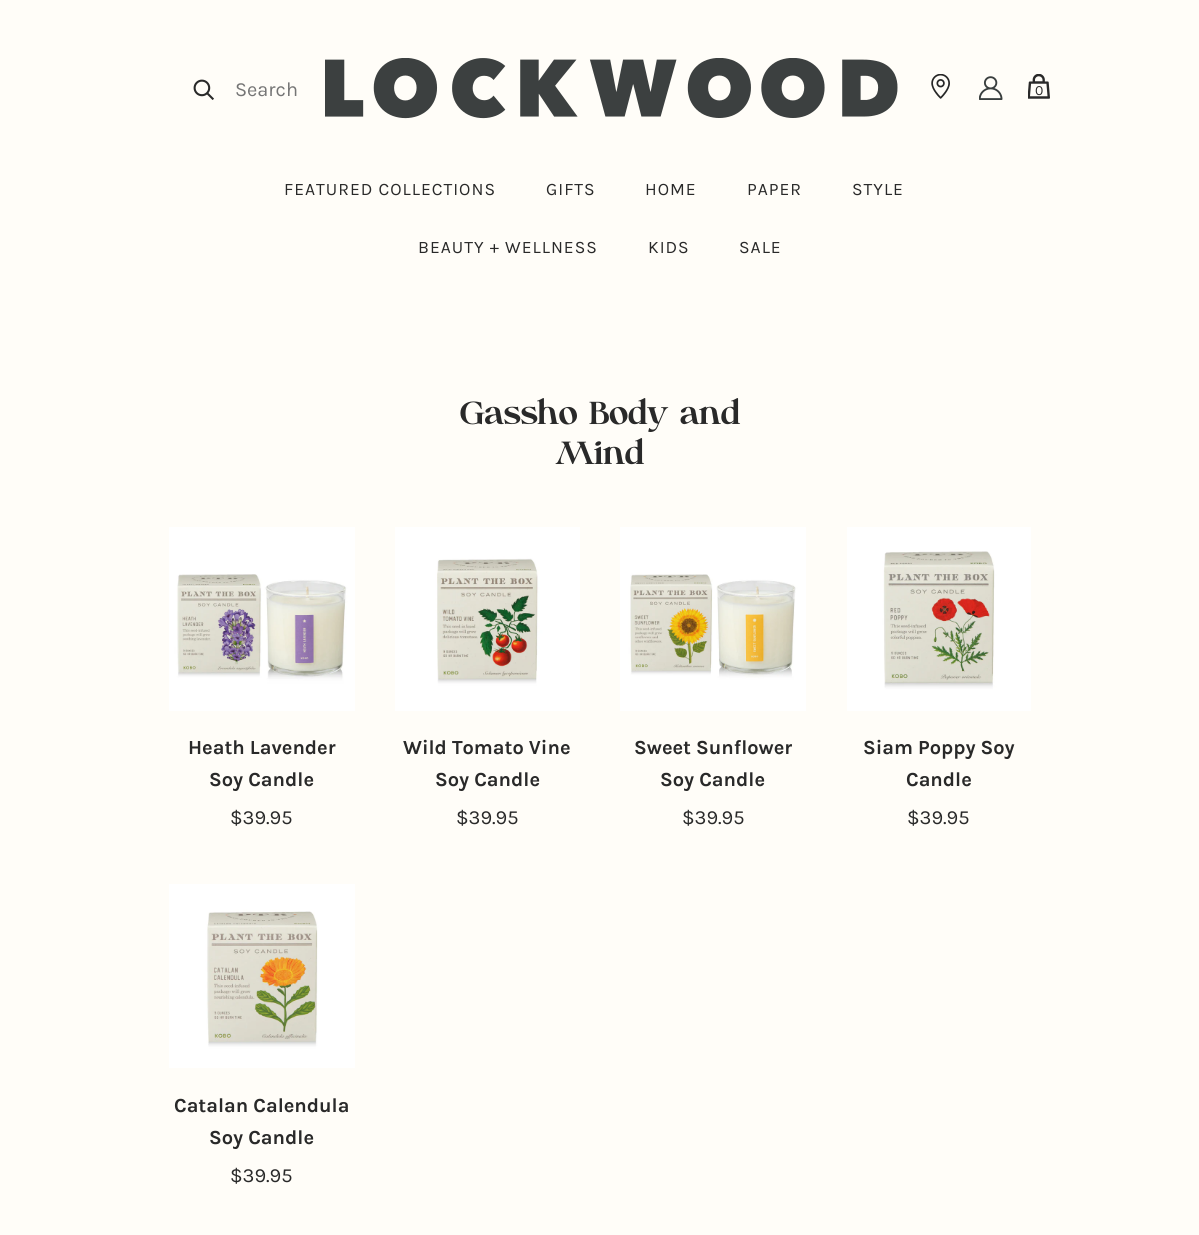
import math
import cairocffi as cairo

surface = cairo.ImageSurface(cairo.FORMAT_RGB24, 1199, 1235)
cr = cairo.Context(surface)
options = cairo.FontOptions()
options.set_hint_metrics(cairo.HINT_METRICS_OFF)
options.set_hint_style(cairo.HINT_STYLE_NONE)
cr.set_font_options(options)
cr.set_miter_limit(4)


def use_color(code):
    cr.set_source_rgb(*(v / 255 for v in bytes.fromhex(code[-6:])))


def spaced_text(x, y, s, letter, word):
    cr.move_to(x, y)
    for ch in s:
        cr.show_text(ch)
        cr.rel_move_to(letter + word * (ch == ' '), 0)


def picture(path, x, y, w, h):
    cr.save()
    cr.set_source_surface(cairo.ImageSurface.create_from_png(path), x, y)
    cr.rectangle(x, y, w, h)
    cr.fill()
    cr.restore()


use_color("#fffdf8")
cr.paint()
picture("img1.png", 193, 79, 21, 21)
cr.select_font_face("Karla")
cr.set_font_size(20)
use_color("#757575")
cr.move_to(235, 96)
cr.show_text("Search")
picture("img2.png", 325, 58, 573, 61)
picture("img3.png", 931, 74, 19, 25)
picture("img4.png", 979, 76, 24, 24)
picture("img5.png", 1028, 74, 22, 25)
cr.set_font_size(14)
use_color("#292929")
cr.move_to(1035, 95)
cr.show_text("0")
cr.set_font_size(17.5)
spaced_text(284, 195, "FEATURED COLLECTIONS", 1, 0)
spaced_text(546, 195, "GIFTS", 1, 0)
spaced_text(645, 195, "HOME", 1, 0)
spaced_text(747, 195, "PAPER", 1, 0)
spaced_text(852, 195, "STYLE", 1, 0)
spaced_text(418, 253, "BEAUTY + WELLNESS", 1, 0)
spaced_text(648, 253, "KIDS", 1, 0)
spaced_text(739, 253, "SALE", 1, 0)
cr.select_font_face("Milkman")
cr.set_font_size(35)
cr.move_to(460, 424)
cr.show_text("Gassho Body and")
cr.move_to(556, 464)
cr.show_text("Mind")
picture("img6.png", 169, 527, 186, 184)
cr.select_font_face("Karla", cairo.FONT_SLANT_NORMAL, cairo.FONT_WEIGHT_BOLD)
cr.set_font_size(20)
cr.move_to(188, 754)
cr.show_text("Heath Lavender")
cr.move_to(209, 786)
cr.show_text("Soy Candle")
cr.select_font_face("Karla")
cr.move_to(230, 824)
cr.show_text("$39.95")
picture("img7.png", 395, 527, 185, 184)
cr.select_font_face("Karla", cairo.FONT_SLANT_NORMAL, cairo.FONT_WEIGHT_BOLD)
cr.move_to(403, 754)
cr.show_text("Wild Tomato Vine")
cr.move_to(435, 786)
cr.show_text("Soy Candle")
cr.select_font_face("Karla")
cr.move_to(456, 824)
cr.show_text("$39.95")
picture("img8.png", 620, 527, 186, 184)
cr.select_font_face("Karla", cairo.FONT_SLANT_NORMAL, cairo.FONT_WEIGHT_BOLD)
cr.move_to(634, 754)
cr.show_text("Sweet Sunflower")
cr.move_to(660, 786)
cr.show_text("Soy Candle")
cr.select_font_face("Karla")
cr.move_to(682, 824)
cr.show_text("$39.95")
picture("img9.png", 847, 527, 184, 184)
cr.select_font_face("Karla", cairo.FONT_SLANT_NORMAL, cairo.FONT_WEIGHT_BOLD)
cr.move_to(863, 754)
cr.show_text("Siam Poppy Soy")
cr.move_to(906, 786)
cr.show_text("Candle")
cr.select_font_face("Karla")
cr.move_to(907, 824)
cr.show_text("$39.95")
picture("img10.png", 169, 884, 186, 184)
cr.select_font_face("Karla", cairo.FONT_SLANT_NORMAL, cairo.FONT_WEIGHT_BOLD)
cr.move_to(174, 1112)
cr.show_text("Catalan Calendula")
cr.move_to(209, 1144)
cr.show_text("Soy Candle")
cr.select_font_face("Karla")
cr.move_to(230, 1182)
cr.show_text("$39.95")
surface.write_to_png("result.png")
